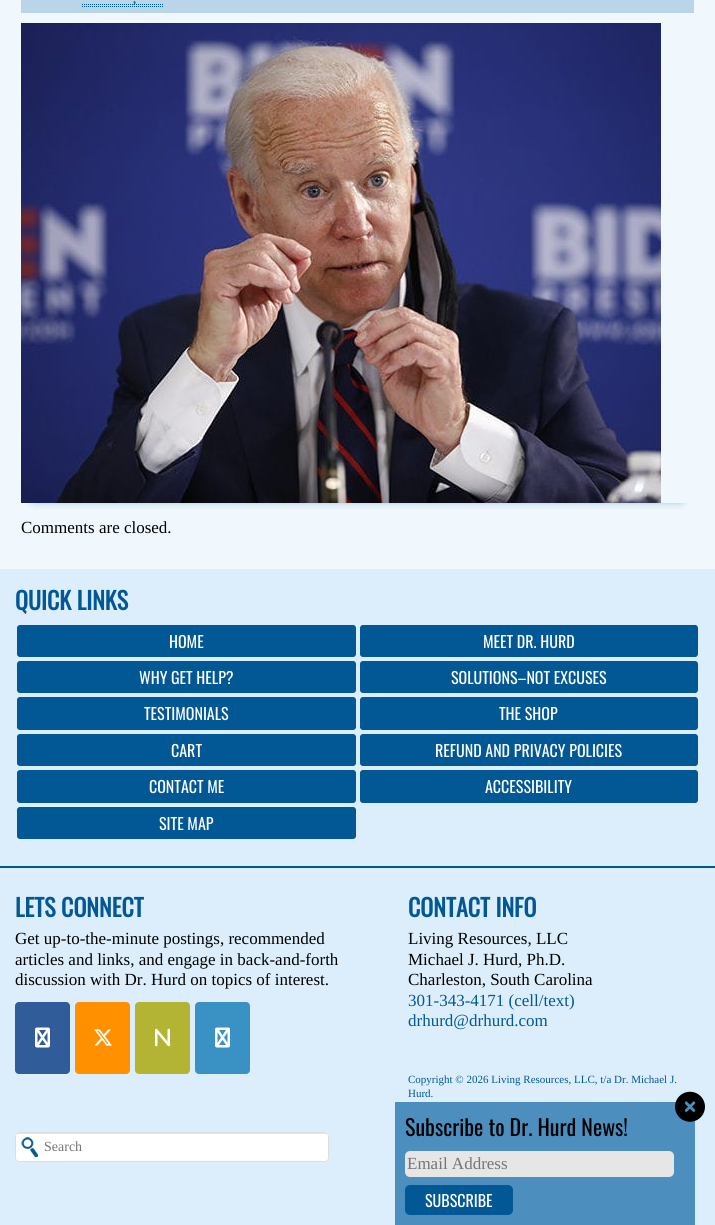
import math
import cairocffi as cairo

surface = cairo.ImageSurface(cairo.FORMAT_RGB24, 715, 1225)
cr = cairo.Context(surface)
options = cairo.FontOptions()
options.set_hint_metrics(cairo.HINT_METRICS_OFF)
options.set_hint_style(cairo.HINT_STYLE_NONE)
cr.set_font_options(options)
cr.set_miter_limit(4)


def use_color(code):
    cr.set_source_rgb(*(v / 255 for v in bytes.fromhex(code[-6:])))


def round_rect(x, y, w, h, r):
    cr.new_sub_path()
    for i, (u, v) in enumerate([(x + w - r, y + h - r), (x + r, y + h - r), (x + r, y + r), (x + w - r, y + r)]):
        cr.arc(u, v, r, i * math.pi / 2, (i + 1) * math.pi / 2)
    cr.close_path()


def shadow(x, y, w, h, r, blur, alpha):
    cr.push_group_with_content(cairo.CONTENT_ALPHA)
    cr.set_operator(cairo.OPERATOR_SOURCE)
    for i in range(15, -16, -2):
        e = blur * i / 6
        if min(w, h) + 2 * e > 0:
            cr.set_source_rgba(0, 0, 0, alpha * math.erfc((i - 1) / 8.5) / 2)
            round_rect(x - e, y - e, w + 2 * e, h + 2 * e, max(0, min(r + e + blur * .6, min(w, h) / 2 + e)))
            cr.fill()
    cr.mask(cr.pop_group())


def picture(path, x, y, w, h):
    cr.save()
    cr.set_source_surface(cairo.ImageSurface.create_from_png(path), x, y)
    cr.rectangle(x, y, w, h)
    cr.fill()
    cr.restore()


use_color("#f1f8fd")
cr.paint()
cr.save()
cr.rectangle(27, 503, 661, 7)
cr.clip()
use_color("#4c8fbf")
shadow(34, -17, 647, 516, 0, 5.5, 1)
cr.restore()
use_color("#bad4e8")
cr.rectangle(21, 0, 673, 13)
cr.fill()
cr.new_path()
cr.move_to(82, 4.5)
cr.line_to(163, 4.5)
use_color("#025895")
cr.set_line_width(1)
cr.set_dash([1, 1])
cr.stroke()
cr.select_font_face("Liberation Serif", cairo.FONT_SLANT_NORMAL, cairo.FONT_WEIGHT_BOLD)
cr.set_font_size(12)
cr.move_to(133, 3)
cr.show_text(",")
cr.new_path()
cr.move_to(82, 6.5)
cr.line_to(163, 6.5)
cr.stroke()
picture("img1.png", 21, 23, 640, 480)
cr.select_font_face("Liberation Serif")
cr.set_font_size(17)
use_color("#000000")
cr.move_to(21, 533)
cr.show_text("Comments are closed.")
use_color("#dceefb")
cr.rectangle(0, 569, 715, 656)
cr.fill()
use_color("#025895")
cr.rectangle(0, 866, 715, 2)
cr.fill()
cr.select_font_face("Oswald", cairo.FONT_SLANT_NORMAL, cairo.FONT_WEIGHT_BOLD)
cr.set_font_size(24)
cr.move_to(15, 610)
cr.show_text("QUICK LINKS")
round_rect(16, 624, 341, 34, 4)
cr.fill_preserve()
use_color("#dceefb")
cr.set_line_width(2)
cr.set_dash([])
cr.stroke()
cr.select_font_face("Oswald")
cr.set_font_size(16)
use_color("#ffffff")
cr.move_to(169, 648)
cr.show_text("HOME")
use_color("#025895")
round_rect(359, 624, 340, 34, 4)
cr.fill_preserve()
use_color("#dceefb")
cr.stroke()
use_color("#ffffff")
cr.move_to(483, 648)
cr.show_text("MEET DR. HURD")
use_color("#025895")
round_rect(16, 660, 341, 34, 4)
cr.fill_preserve()
use_color("#dceefb")
cr.stroke()
use_color("#ffffff")
cr.move_to(139, 684)
cr.show_text("WHY GET HELP?")
use_color("#025895")
round_rect(359, 660, 340, 34, 4)
cr.fill_preserve()
use_color("#dceefb")
cr.stroke()
use_color("#ffffff")
cr.move_to(451, 684)
cr.show_text("SOLUTIONS–NOT EXCUSES")
use_color("#025895")
round_rect(16, 696, 341, 35, 4)
cr.fill_preserve()
use_color("#dceefb")
cr.stroke()
use_color("#ffffff")
cr.move_to(144, 720)
cr.show_text("TESTIMONIALS")
use_color("#025895")
round_rect(359, 696, 340, 35, 4)
cr.fill_preserve()
use_color("#dceefb")
cr.stroke()
use_color("#ffffff")
cr.move_to(499, 720)
cr.show_text("THE SHOP")
use_color("#025895")
round_rect(16, 733, 341, 34, 4)
cr.fill_preserve()
use_color("#dceefb")
cr.stroke()
use_color("#ffffff")
cr.move_to(171, 757)
cr.show_text("CART")
use_color("#025895")
round_rect(359, 733, 340, 34, 4)
cr.fill_preserve()
use_color("#dceefb")
cr.stroke()
use_color("#ffffff")
cr.move_to(435, 757)
cr.show_text("REFUND AND PRIVACY POLICIES")
use_color("#025895")
round_rect(16, 769, 341, 35, 4)
cr.fill_preserve()
use_color("#dceefb")
cr.stroke()
use_color("#ffffff")
cr.move_to(149, 793)
cr.show_text("CONTACT ME")
use_color("#025895")
round_rect(359, 769, 340, 35, 4)
cr.fill_preserve()
use_color("#dceefb")
cr.stroke()
use_color("#ffffff")
cr.move_to(485, 793)
cr.show_text("ACCESSIBILITY")
use_color("#025895")
round_rect(16, 806, 341, 34, 4)
cr.fill_preserve()
use_color("#dceefb")
cr.stroke()
use_color("#ffffff")
cr.move_to(159, 830)
cr.show_text("SITE MAP")
cr.select_font_face("Oswald", cairo.FONT_SLANT_NORMAL, cairo.FONT_WEIGHT_BOLD)
cr.set_font_size(24)
use_color("#025895")
cr.move_to(15, 917)
cr.show_text("LETS CONNECT")
cr.select_font_face("Liberation Serif")
cr.set_font_size(17)
use_color("#000000")
cr.move_to(15, 944)
cr.show_text("Get up-to-the-minute postings, recommended")
cr.move_to(15, 965)
cr.show_text("articles and links, and engage in back-and-forth")
cr.move_to(15, 985)
cr.show_text("discussion with Dr. Hurd on topics of interest.")
use_color("#305c99")
round_rect(15, 1002, 55, 72, 4)
cr.fill()
picture("img2.png", 35, 1027, 15, 21)
use_color("#ff9000")
round_rect(75, 1002, 55, 72, 4)
cr.fill()
picture("img3.png", 94, 1029, 18, 17)
use_color("#b4b434")
round_rect(135, 1002, 55, 72, 4)
cr.fill()
picture("img4.png", 155, 1028, 15, 19)
use_color("#3a92c4")
round_rect(195, 1002, 55, 72, 4)
cr.fill()
picture("img5.png", 215, 1027, 15, 21)
use_color("#ffffff")
round_rect(15, 1132, 314, 30, 4)
cr.fill()
picture("img6.png", 21, 1137, 17, 20)
use_color("#e6e6e6")
cr.new_path()
cr.move_to(19, 1134)
cr.line_to(325, 1134)
cr.curve_to(327, 1134, 328, 1135, 328, 1137)
cr.line_to(327, 1134)
cr.line_to(326, 1133)
cr.line_to(19, 1133)
cr.curve_to(17, 1133, 16, 1135, 16, 1137)
cr.curve_to(16, 1135, 17, 1134, 19, 1134)
cr.close_path()
cr.fill()
round_rect(15.5, 1132.5, 313, 29, 3.5)
use_color("#dddddd")
cr.set_line_width(1)
cr.stroke()
cr.set_font_size(14)
use_color("#757575")
cr.move_to(44, 1151)
cr.show_text("Search")
cr.select_font_face("Oswald", cairo.FONT_SLANT_NORMAL, cairo.FONT_WEIGHT_BOLD)
cr.set_font_size(24)
use_color("#025895")
cr.move_to(408, 917)
cr.show_text("CONTACT INFO")
cr.select_font_face("Liberation Serif")
cr.set_font_size(17)
use_color("#000000")
cr.move_to(408, 944)
cr.show_text("Living Resources, LLC")
cr.move_to(408, 965)
cr.show_text("Michael J. Hurd, Ph.D.")
cr.move_to(408, 985)
cr.show_text("Charleston, South Carolina")
use_color("#025895")
cr.move_to(408, 1006)
cr.show_text("301-343-4171 (cell/text)")
cr.move_to(408, 1026)
cr.show_text("drhurd@drhurd.com")
cr.set_font_size(11)
cr.move_to(408, 1083)
cr.show_text("Copyright © 2026 Living Resources, LLC, t/a Dr. Michael J.")
cr.move_to(408, 1097)
cr.show_text("Hurd.")
use_color("#4c8fbf")
cr.rectangle(395, 1102, 300, 123)
cr.fill()
picture("img7.png", 675, 1091, 30, 31)
cr.select_font_face("Oswald")
cr.set_font_size(22)
use_color("#000000")
cr.move_to(405, 1136)
cr.show_text("Subscribe to Dr. Hurd News!")
use_color("#e6e6e6")
round_rect(405, 1151, 269, 26, 5)
cr.fill()
cr.select_font_face("Liberation Serif")
cr.set_font_size(17)
use_color("#757575")
cr.move_to(407, 1169)
cr.show_text("Email Address")
use_color("#025895")
round_rect(405, 1185, 108, 30, 5)
cr.fill()
cr.select_font_face("Oswald")
cr.set_font_size(16)
use_color("#ffffff")
cr.move_to(425, 1207)
cr.show_text("SUBSCRIBE")
surface.write_to_png("result.png")
